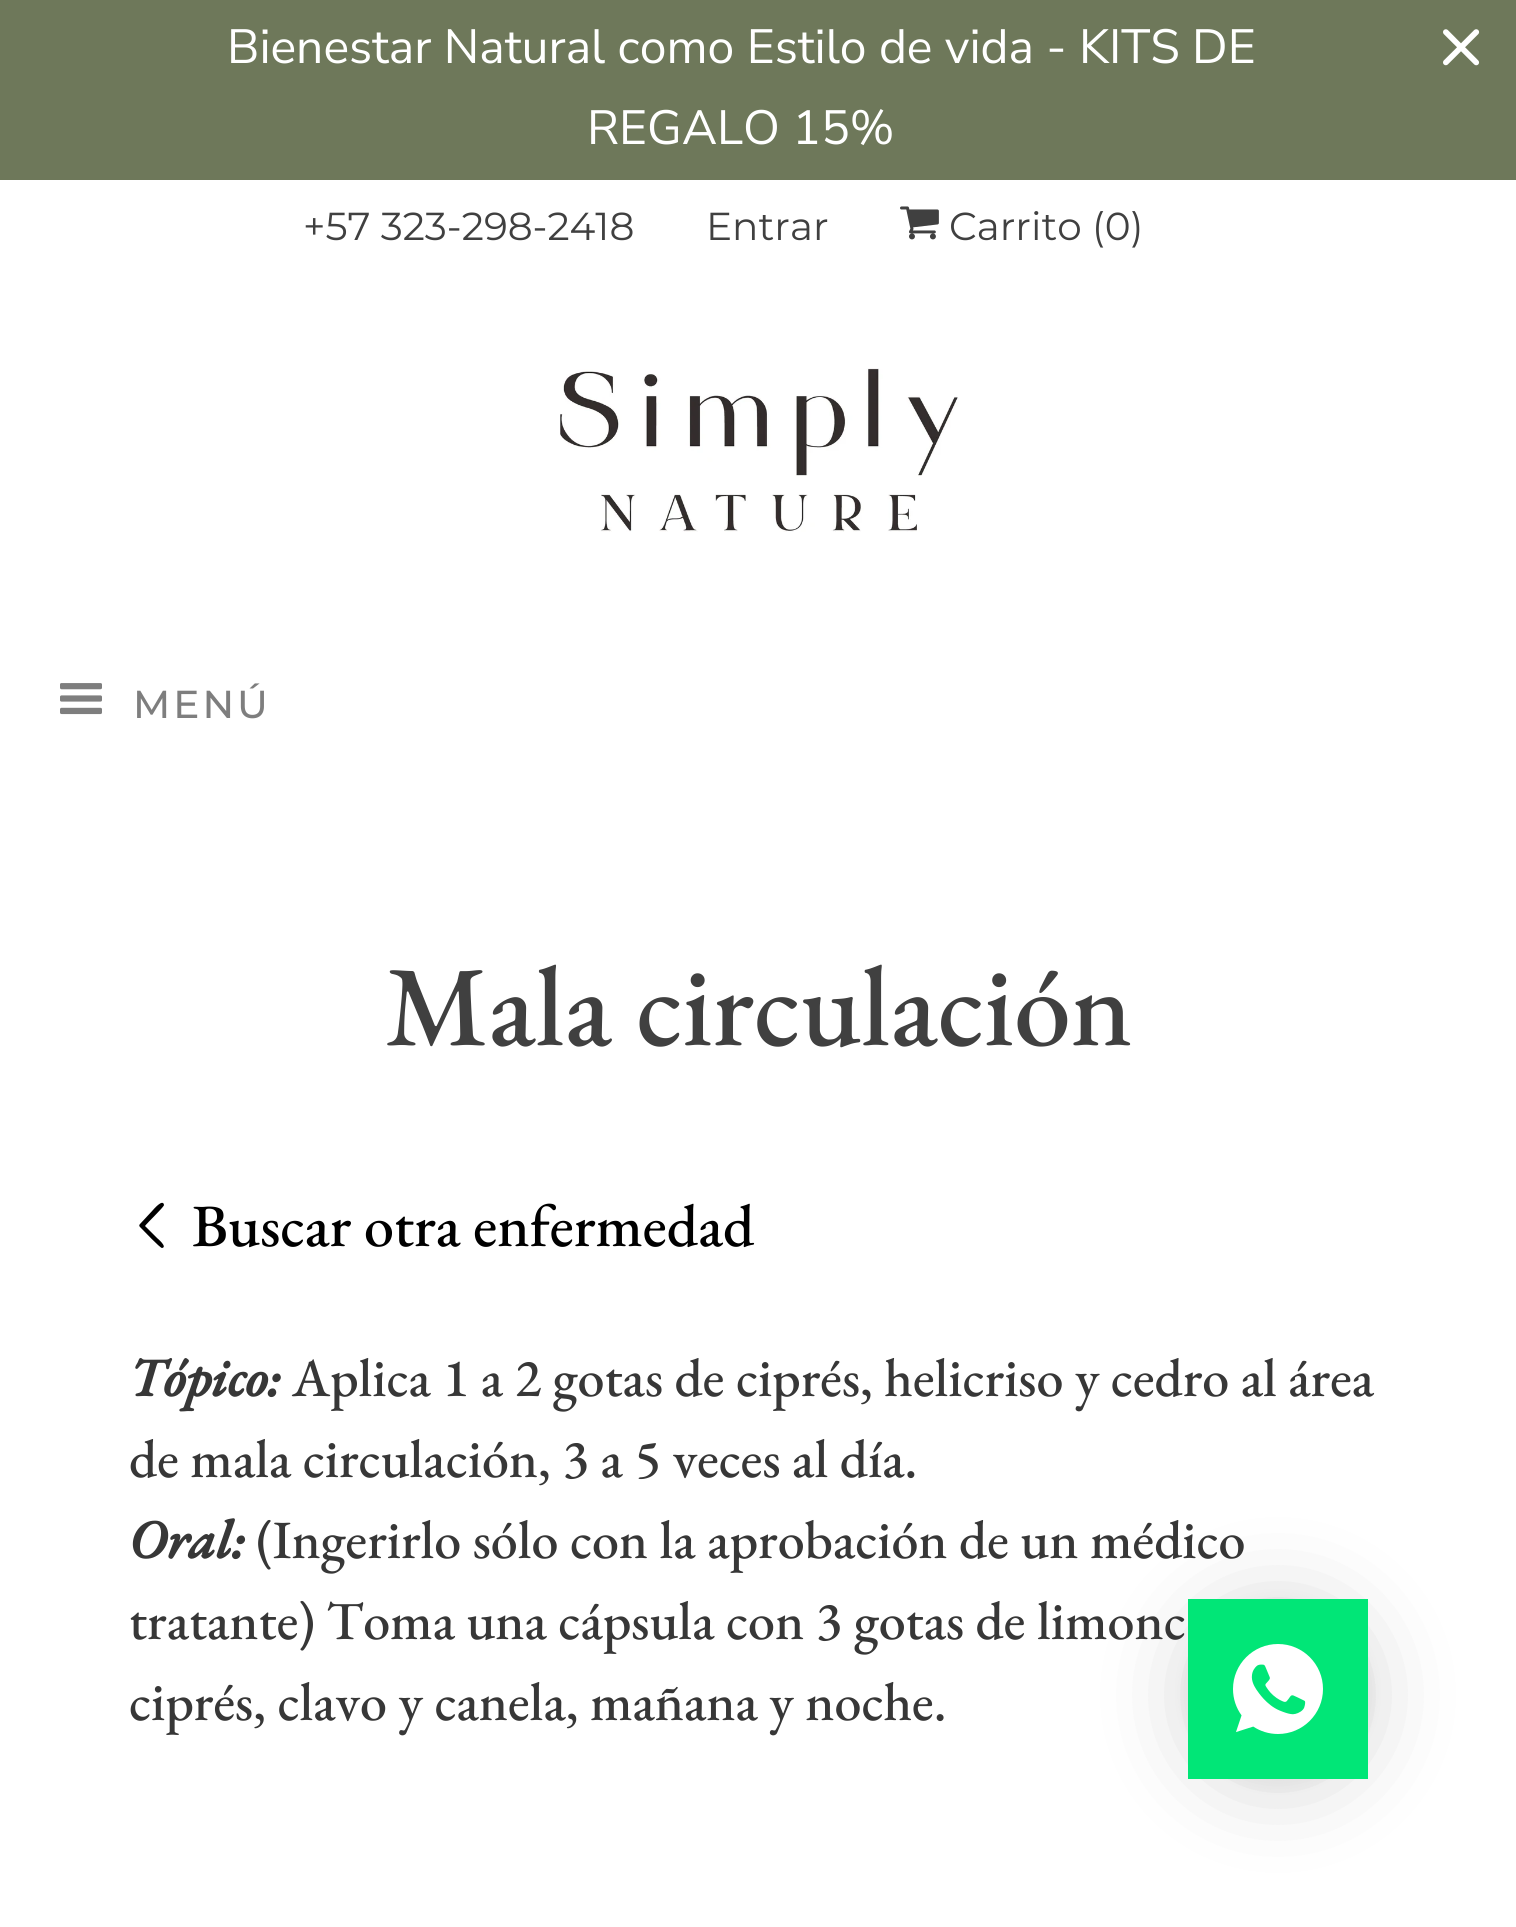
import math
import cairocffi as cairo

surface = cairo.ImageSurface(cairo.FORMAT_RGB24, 1516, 1927)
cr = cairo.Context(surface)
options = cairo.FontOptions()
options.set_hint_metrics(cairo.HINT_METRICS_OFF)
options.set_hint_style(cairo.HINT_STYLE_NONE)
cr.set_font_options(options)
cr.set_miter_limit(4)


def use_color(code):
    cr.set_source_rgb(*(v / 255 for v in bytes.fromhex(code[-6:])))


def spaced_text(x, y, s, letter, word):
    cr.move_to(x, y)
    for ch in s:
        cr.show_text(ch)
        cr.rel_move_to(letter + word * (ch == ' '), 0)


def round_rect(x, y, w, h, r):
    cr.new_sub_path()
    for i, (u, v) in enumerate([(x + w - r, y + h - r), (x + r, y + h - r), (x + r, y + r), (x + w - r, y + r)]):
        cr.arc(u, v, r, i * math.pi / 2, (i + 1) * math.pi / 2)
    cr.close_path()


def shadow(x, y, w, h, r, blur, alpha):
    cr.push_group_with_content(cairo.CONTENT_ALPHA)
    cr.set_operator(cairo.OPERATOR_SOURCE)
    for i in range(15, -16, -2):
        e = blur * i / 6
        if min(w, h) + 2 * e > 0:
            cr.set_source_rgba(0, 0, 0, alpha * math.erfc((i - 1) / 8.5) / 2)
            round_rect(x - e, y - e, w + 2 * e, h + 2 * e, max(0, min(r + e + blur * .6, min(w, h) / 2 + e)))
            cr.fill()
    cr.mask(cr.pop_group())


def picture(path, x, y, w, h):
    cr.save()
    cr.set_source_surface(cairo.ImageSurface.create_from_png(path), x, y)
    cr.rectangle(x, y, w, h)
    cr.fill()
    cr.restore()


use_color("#ffffff")
cr.paint()
use_color("#6e785a")
cr.rectangle(0, 0, 1516, 180)
cr.fill()
cr.select_font_face("Nunito Sans")
cr.set_font_size(48)
use_color("#ffffff")
cr.move_to(227, 63)
cr.show_text("Bienestar Natural como Estilo de vida - KITS DE")
cr.move_to(587, 144)
cr.show_text("REGALO 15%")
picture("img1.png", 1443, 29, 37, 37)
cr.select_font_face("Montserrat")
cr.set_font_size(39)
use_color("#404040")
cr.move_to(303, 240)
cr.show_text("+57 323-298-2418")
cr.move_to(706, 240)
cr.show_text("Entrar")
picture("img2.png", 900, 206, 39, 34)
cr.move_to(949, 240)
cr.show_text("Carrito (0)")
picture("img3.png", 560, 368, 399, 164)
picture("img4.png", 60, 683, 42, 32)
cr.select_font_face("Montserrat Medium")
use_color("#7e7e7e")
spaced_text(133, 718, "MENÚ", 3, 0)
cr.select_font_face("EB Garamond Medium")
cr.set_font_size(114)
use_color("#404040")
cr.move_to(385, 1045)
cr.show_text("Mala circulación")
use_color("#000000")
cr.new_path()
cr.move_to(140, 1227)
cr.curve_to(143, 1230, 160, 1248, 162, 1248)
cr.curve_to(168, 1247, 157, 1238, 157, 1238)
cr.line_to(145, 1226)
cr.curve_to(147, 1223, 164, 1207, 164, 1205)
cr.curve_to(163, 1198, 153, 1210, 153, 1210)
cr.line_to(140, 1224)
cr.curve_to(139, 1225, 139, 1226, 140, 1227)
cr.close_path()
cr.fill()
cr.set_font_size(60)
cr.move_to(192, 1246)
cr.show_text("Buscar otra enfermedad")
cr.select_font_face("EB Garamond", cairo.FONT_SLANT_ITALIC, cairo.FONT_WEIGHT_BOLD)
cr.set_font_size(54)
use_color("#373737")
cr.move_to(129, 1396)
cr.show_text("Tópico:")
cr.select_font_face("EB Garamond Medium")
cr.move_to(292, 1396)
cr.show_text("Aplica 1 a 2 gotas de ciprés, helicriso y cedro al área")
cr.move_to(129, 1477)
cr.show_text("de mala circulación, 3 a 5 veces al día.")
cr.select_font_face("EB Garamond", cairo.FONT_SLANT_ITALIC, cairo.FONT_WEIGHT_BOLD)
cr.move_to(129, 1558)
cr.show_text("Oral:")
cr.select_font_face("EB Garamond Medium")
cr.move_to(256, 1558)
cr.show_text("(Ingerirlo sólo con la aprobación de un médico")
cr.move_to(129, 1639)
cr.show_text("tratante) Toma una cápsula con 3 gotas de limonc")
cr.move_to(129, 1720)
cr.show_text("ciprés, clavo y canela, mañana y noche.")
use_color("#000000")
shadow(1188, 1605, 180, 180, 90, 48, 0.16)
shadow(1188, 1602, 180, 180, 90, 9, 0.06)
use_color("#01e677")
cr.rectangle(1188, 1599, 180, 180)
cr.fill()
picture("img5.png", 1233, 1644, 90, 90)
surface.write_to_png("result.png")
